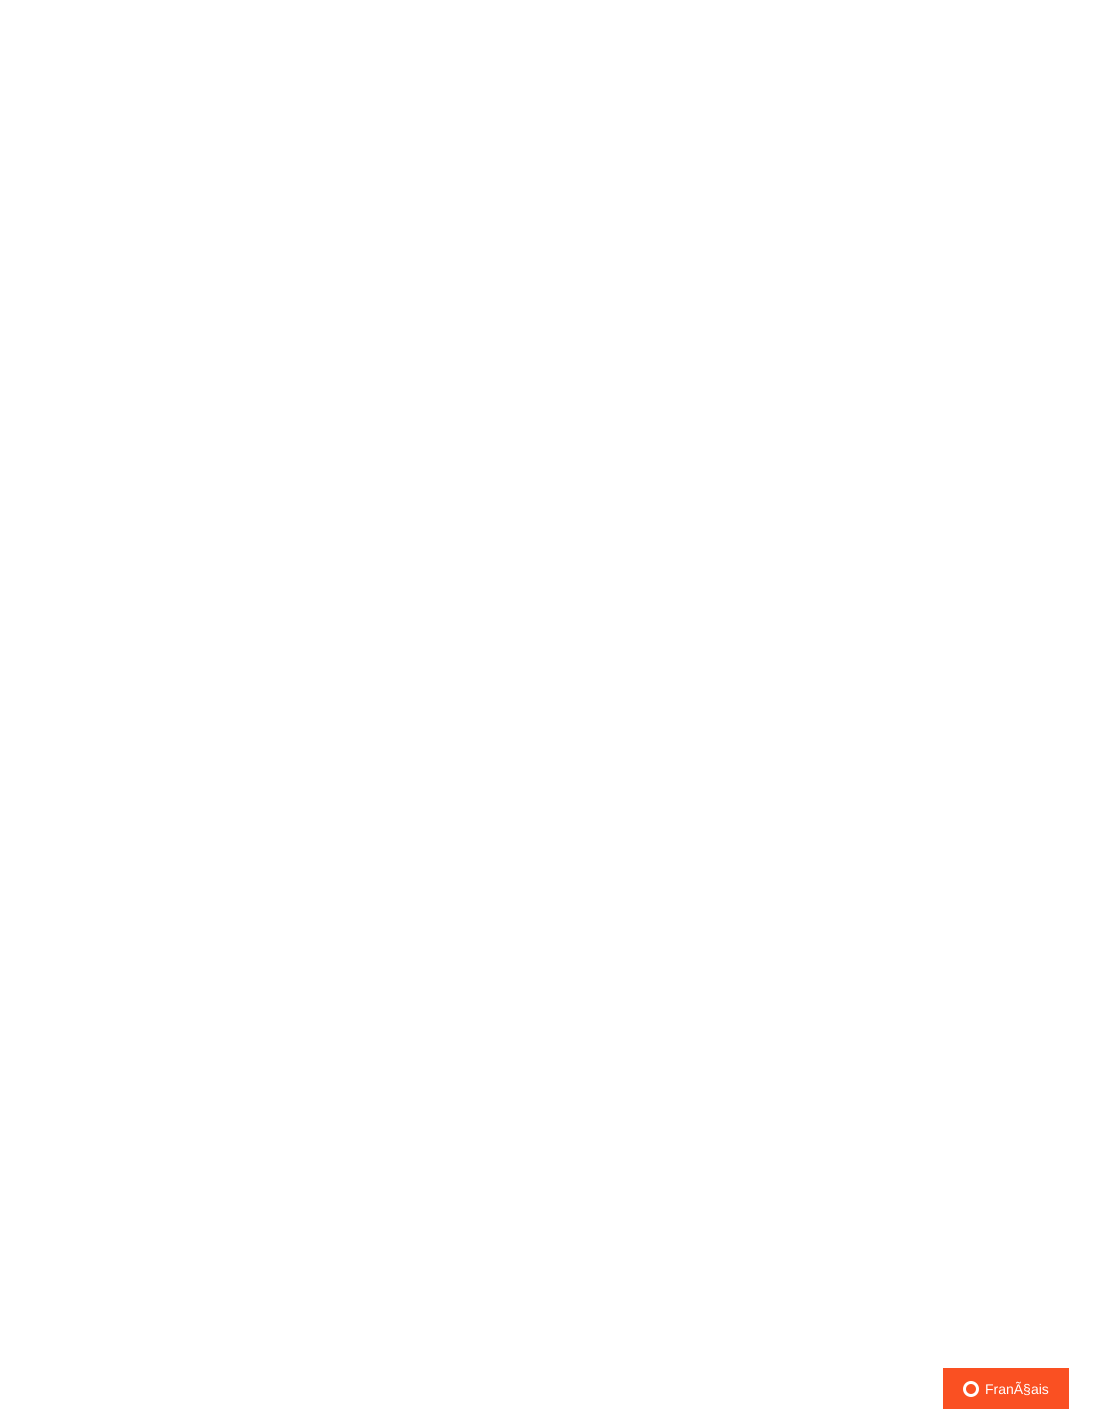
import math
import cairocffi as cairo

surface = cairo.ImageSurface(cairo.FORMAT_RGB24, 1099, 1409)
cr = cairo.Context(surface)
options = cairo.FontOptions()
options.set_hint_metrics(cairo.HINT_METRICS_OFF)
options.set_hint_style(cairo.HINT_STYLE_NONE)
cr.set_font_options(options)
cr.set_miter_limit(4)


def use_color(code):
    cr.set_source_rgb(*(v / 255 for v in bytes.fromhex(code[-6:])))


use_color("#ffffff")
cr.paint()
use_color("#fa5022")
cr.rectangle(943, 1368, 126, 41)
cr.fill()
cr.arc(971, 1389, 6.5, 0, 2 * math.pi)
use_color("#ffffff")
cr.set_line_width(3)
cr.stroke()
cr.select_font_face("Liberation Sans")
cr.set_font_size(14)
cr.move_to(985, 1394)
cr.show_text("FranÃ§ais")
surface.write_to_png("result.png")
